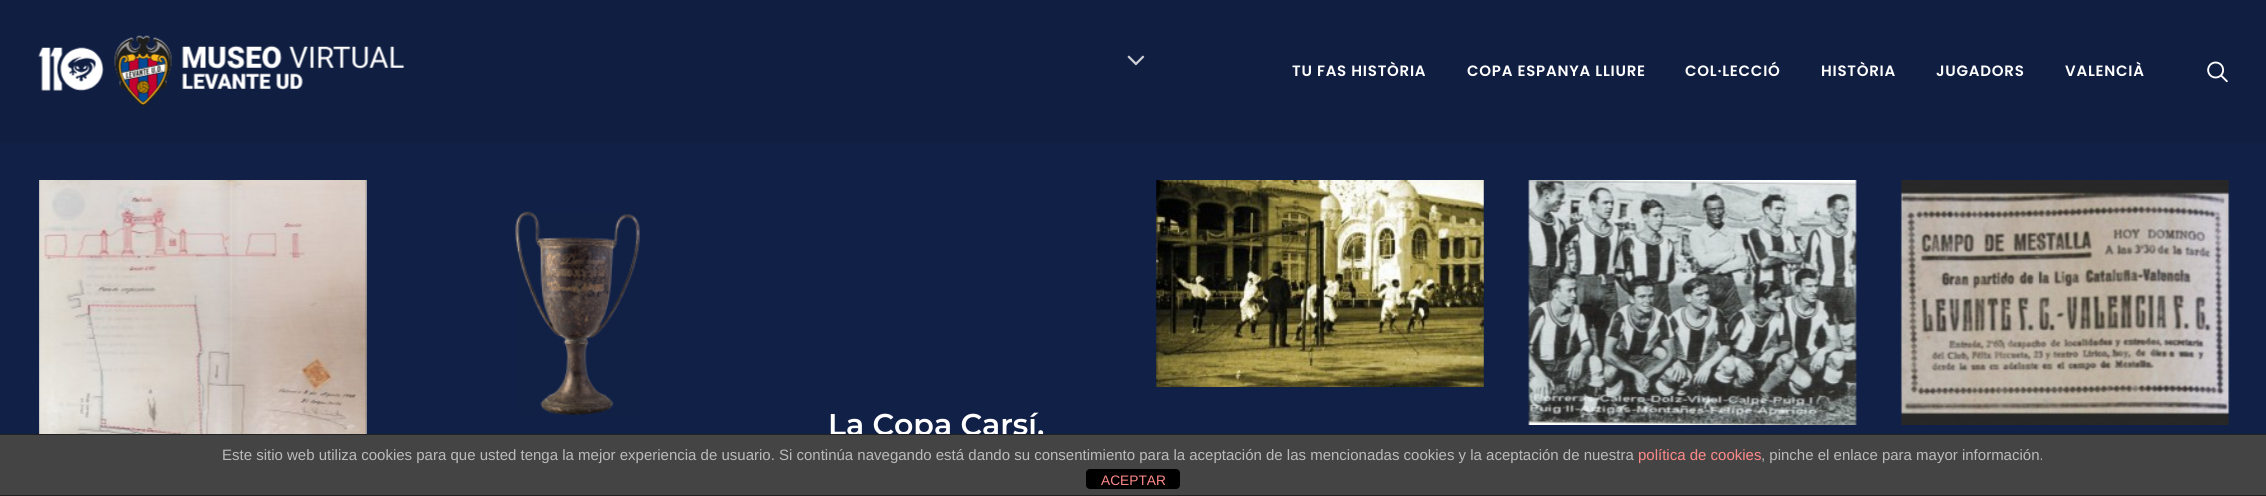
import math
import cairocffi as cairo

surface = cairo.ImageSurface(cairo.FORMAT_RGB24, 2266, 496)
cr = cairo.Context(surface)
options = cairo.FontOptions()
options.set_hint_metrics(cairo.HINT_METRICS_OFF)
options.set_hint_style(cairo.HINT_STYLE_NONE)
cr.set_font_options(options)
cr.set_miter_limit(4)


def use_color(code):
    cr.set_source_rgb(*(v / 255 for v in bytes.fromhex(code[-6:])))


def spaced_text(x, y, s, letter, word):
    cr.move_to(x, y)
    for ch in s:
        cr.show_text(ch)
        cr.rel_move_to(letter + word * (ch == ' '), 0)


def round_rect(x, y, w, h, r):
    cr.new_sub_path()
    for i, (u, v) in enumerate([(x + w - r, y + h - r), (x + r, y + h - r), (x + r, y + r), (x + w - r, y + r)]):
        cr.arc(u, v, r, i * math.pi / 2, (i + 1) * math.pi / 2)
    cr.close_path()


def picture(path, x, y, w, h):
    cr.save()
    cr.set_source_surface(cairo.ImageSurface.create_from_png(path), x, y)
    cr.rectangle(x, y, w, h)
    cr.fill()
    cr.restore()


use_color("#112046")
cr.paint()
picture("img3.png", 1127, 55, 18, 11)
cr.set_source_rgba(0.051, 0.09, 0.196, 0.2)
cr.rectangle(0, 0, 2266, 143)
cr.fill()
picture("img1.png", 38, 35, 367, 71)
cr.select_font_face("Poppins SemiBold")
cr.set_font_size(15)
use_color("#ffffff")
spaced_text(1292, 76, "TU FAS HISTÒRIA", 0.75, 0)
spaced_text(1467, 76, "COPA ESPANYA LLIURE", 0.75, 0)
spaced_text(1685, 76, "COL·LECCIÓ", 0.75, 0)
spaced_text(1821, 76, "HISTÒRIA", 0.75, 0)
spaced_text(1936, 76, "JUGADORS", 0.75, 0)
spaced_text(2065, 76, "VALENCIÀ", 0.75, 0)
picture("img2.png", 2207, 61, 21, 22)
picture("img4.png", 39, 180, 328, 254)
picture("img5.png", 515, 211, 125, 204)
picture("img6.png", 1156, 180, 328, 207)
picture("img7.png", 1528, 180, 329, 245)
picture("img8.png", 1900, 180, 330, 245)
cr.select_font_face("Montserrat SemiBold")
cr.set_font_size(30)
cr.move_to(828, 435)
cr.show_text("La Copa Carsí,")
use_color("#444444")
cr.rectangle(0, 435, 2266, 60)
cr.fill()
use_color("#222222")
cr.rectangle(0, 434, 2266, 1)
cr.fill()
cr.rectangle(0, 495, 2266, 1)
cr.fill()
cr.select_font_face("Liberation Sans")
cr.set_font_size(15)
use_color("#bbbbbb")
cr.move_to(222, 460)
cr.show_text("Este sitio web utiliza cookies para que usted tenga la mejor experiencia de usuario. Si continúa navegando está dando su consentimiento para la aceptación de las mencionadas cookies y la aceptación de nuestra")
use_color("#ff8888")
cr.move_to(1638, 460)
cr.show_text("política de cookies")
use_color("#bbbbbb")
cr.move_to(1761, 460)
cr.show_text(", pinche el enlace para mayor información.")
use_color("#000000")
round_rect(1086, 469, 94, 20, 4)
cr.fill()
cr.set_font_size(13.75)
use_color("#ff8888")
cr.move_to(1101, 485)
cr.show_text("ACEPTAR")
surface.write_to_png("result.png")
